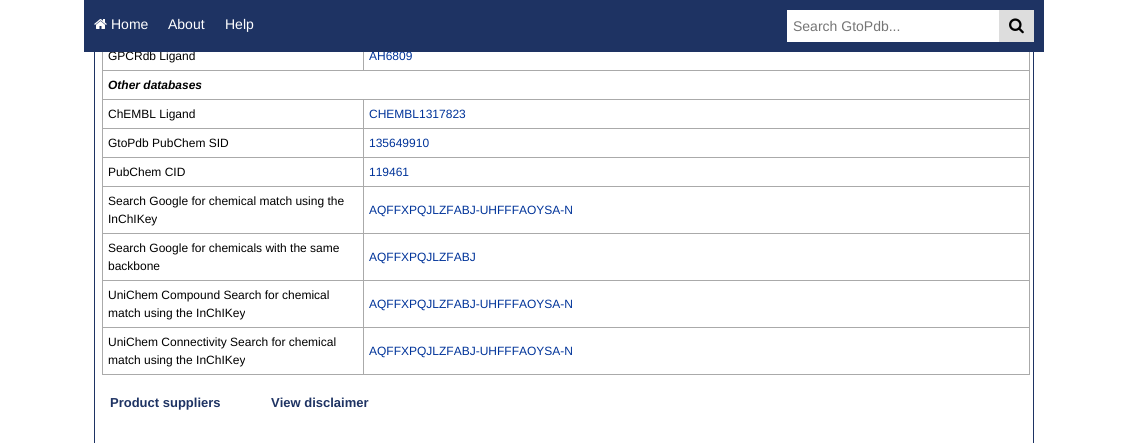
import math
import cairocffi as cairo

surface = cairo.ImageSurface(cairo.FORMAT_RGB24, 1128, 443)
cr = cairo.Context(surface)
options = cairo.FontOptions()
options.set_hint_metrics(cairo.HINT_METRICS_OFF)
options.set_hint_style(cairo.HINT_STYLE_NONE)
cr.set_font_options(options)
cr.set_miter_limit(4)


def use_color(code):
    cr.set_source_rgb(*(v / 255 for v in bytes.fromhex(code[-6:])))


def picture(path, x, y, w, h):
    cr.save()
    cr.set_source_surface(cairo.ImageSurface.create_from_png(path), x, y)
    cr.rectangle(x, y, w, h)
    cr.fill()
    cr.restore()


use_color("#ffffff")
cr.paint()
cr.rectangle(94.5, -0.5, 939, 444)
use_color("#1e3363")
cr.set_line_width(1)
cr.stroke()
cr.select_font_face("Liberation Sans")
cr.set_font_size(12)
use_color("#000000")
cr.move_to(108, 60)
cr.show_text("GPCRdb Ligand")
use_color("#003399")
cr.move_to(369, 60)
cr.show_text("AH6809")
use_color("#1e3363")
cr.rectangle(84, 0, 960, 52)
cr.fill()
picture("img1.png", 94, 19, 13, 10)
cr.set_font_size(14)
use_color("#ffffff")
cr.move_to(111, 29)
cr.show_text("Home")
cr.move_to(168, 29)
cr.show_text("About")
cr.move_to(225, 29)
cr.show_text("Help")
cr.rectangle(787, 10, 212, 32)
cr.fill()
use_color("#757575")
cr.move_to(793, 31)
cr.show_text("Search GtoPdb...")
use_color("#dddddd")
cr.rectangle(999, 10, 35, 32)
cr.fill()
picture("img2.png", 1009, 18, 15, 16)
use_color("#aaaaaa")
cr.rectangle(102, 70, 928, 1)
cr.fill()
cr.rectangle(363, 52, 1, 19)
cr.fill()
cr.rectangle(363, 99, 667, 1)
cr.fill()
cr.rectangle(363, 128, 667, 1)
cr.fill()
cr.rectangle(363, 157, 667, 1)
cr.fill()
cr.rectangle(363, 186, 667, 1)
cr.fill()
cr.rectangle(363, 233, 667, 1)
cr.fill()
cr.rectangle(363, 280, 667, 1)
cr.fill()
cr.rectangle(363, 327, 667, 1)
cr.fill()
cr.rectangle(1029, 327, 1, 48)
cr.fill()
cr.rectangle(1029, 280, 1, 48)
cr.fill()
cr.rectangle(1029, 233, 1, 48)
cr.fill()
cr.rectangle(1029, 186, 1, 48)
cr.fill()
cr.rectangle(1029, 157, 1, 30)
cr.fill()
cr.rectangle(1029, 128, 1, 30)
cr.fill()
cr.rectangle(1029, 99, 1, 30)
cr.fill()
cr.rectangle(1029, 52, 1, 48)
cr.fill()
cr.rectangle(363, 374, 667, 1)
cr.fill()
cr.rectangle(363, 327, 1, 48)
cr.fill()
cr.rectangle(102, 327, 262, 1)
cr.fill()
cr.rectangle(363, 280, 1, 48)
cr.fill()
cr.rectangle(102, 280, 262, 1)
cr.fill()
cr.rectangle(363, 233, 1, 48)
cr.fill()
cr.rectangle(102, 233, 262, 1)
cr.fill()
cr.rectangle(363, 186, 1, 48)
cr.fill()
cr.rectangle(102, 186, 262, 1)
cr.fill()
cr.rectangle(363, 157, 1, 30)
cr.fill()
cr.rectangle(102, 157, 262, 1)
cr.fill()
cr.rectangle(363, 128, 1, 30)
cr.fill()
cr.rectangle(102, 128, 262, 1)
cr.fill()
cr.rectangle(363, 99, 1, 30)
cr.fill()
cr.rectangle(102, 99, 262, 1)
cr.fill()
cr.rectangle(102, 374, 262, 1)
cr.fill()
cr.rectangle(102, 327, 1, 48)
cr.fill()
cr.rectangle(102, 280, 1, 48)
cr.fill()
cr.rectangle(102, 233, 1, 48)
cr.fill()
cr.rectangle(102, 186, 1, 48)
cr.fill()
cr.rectangle(102, 157, 1, 30)
cr.fill()
cr.rectangle(102, 128, 1, 30)
cr.fill()
cr.rectangle(102, 99, 1, 30)
cr.fill()
cr.rectangle(102, 52, 1, 48)
cr.fill()
cr.select_font_face("Liberation Sans", cairo.FONT_SLANT_ITALIC, cairo.FONT_WEIGHT_BOLD)
cr.set_font_size(12)
use_color("#000000")
cr.move_to(108, 89)
cr.show_text("Other databases")
cr.select_font_face("Liberation Sans")
cr.move_to(108, 118)
cr.show_text("ChEMBL Ligand")
use_color("#003399")
cr.move_to(369, 118)
cr.show_text("CHEMBL1317823")
use_color("#000000")
cr.move_to(108, 147)
cr.show_text("GtoPdb PubChem SID")
use_color("#003399")
cr.move_to(369, 147)
cr.show_text("135649910")
use_color("#000000")
cr.move_to(108, 176)
cr.show_text("PubChem CID")
use_color("#003399")
cr.move_to(369, 176)
cr.show_text("119461")
use_color("#000000")
cr.move_to(108, 205)
cr.show_text("Search Google for chemical match using the")
cr.move_to(108, 223)
cr.show_text("InChIKey")
use_color("#003399")
cr.move_to(369, 214)
cr.show_text("AQFFXPQJLZFABJ-UHFFFAOYSA-N")
use_color("#000000")
cr.move_to(108, 252)
cr.show_text("Search Google for chemicals with the same")
cr.move_to(108, 270)
cr.show_text("backbone")
use_color("#003399")
cr.move_to(369, 261)
cr.show_text("AQFFXPQJLZFABJ")
use_color("#000000")
cr.move_to(108, 299)
cr.show_text("UniChem Compound Search for chemical")
cr.move_to(108, 317)
cr.show_text("match using the InChIKey")
use_color("#003399")
cr.move_to(369, 308)
cr.show_text("AQFFXPQJLZFABJ-UHFFFAOYSA-N")
use_color("#000000")
cr.move_to(108, 346)
cr.show_text("UniChem Connectivity Search for chemical")
cr.move_to(108, 364)
cr.show_text("match using the InChIKey")
use_color("#003399")
cr.move_to(369, 355)
cr.show_text("AQFFXPQJLZFABJ-UHFFFAOYSA-N")
cr.select_font_face("Liberation Sans", cairo.FONT_SLANT_NORMAL, cairo.FONT_WEIGHT_BOLD)
cr.set_font_size(13)
use_color("#1e3363")
cr.move_to(110, 407)
cr.show_text("Product suppliers")
cr.move_to(271, 407)
cr.show_text("View disclaimer")
surface.write_to_png("result.png")
